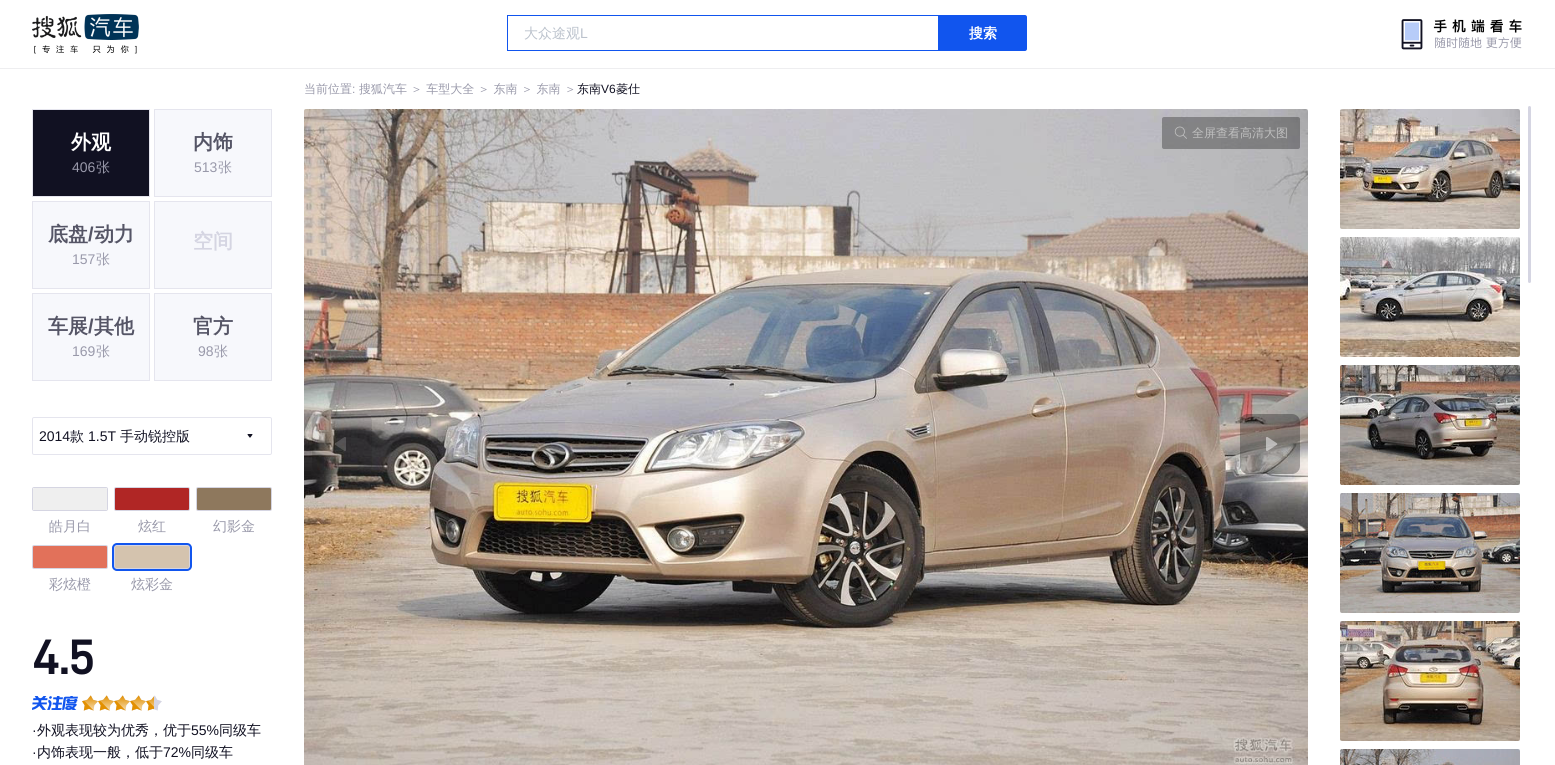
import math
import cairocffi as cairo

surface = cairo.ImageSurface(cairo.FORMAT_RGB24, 1555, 765)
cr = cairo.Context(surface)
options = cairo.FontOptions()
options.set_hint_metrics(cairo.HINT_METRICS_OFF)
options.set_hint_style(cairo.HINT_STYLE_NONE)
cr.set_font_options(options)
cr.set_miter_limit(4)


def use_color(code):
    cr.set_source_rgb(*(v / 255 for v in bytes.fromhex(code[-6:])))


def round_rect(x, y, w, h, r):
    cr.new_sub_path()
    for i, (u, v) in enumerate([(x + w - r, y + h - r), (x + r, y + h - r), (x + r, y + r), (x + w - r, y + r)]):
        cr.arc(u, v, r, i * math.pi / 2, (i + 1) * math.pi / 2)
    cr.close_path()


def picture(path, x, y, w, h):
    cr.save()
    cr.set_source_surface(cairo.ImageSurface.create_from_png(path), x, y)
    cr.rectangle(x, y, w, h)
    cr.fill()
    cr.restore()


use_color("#ffffff")
cr.paint()
use_color("#eeeef0")
cr.rectangle(0, 68, 1555, 1)
cr.fill()
picture("img1.png", 32, 14, 107, 40)
cr.rectangle(507.5, 15.5, 431, 35)
use_color("#1155ee")
cr.set_line_width(1)
cr.stroke()
cr.select_font_face("WenQuanYi Zen Hei Medium")
cr.set_font_size(14)
use_color("#bbc2cc")
cr.move_to(524, 38)
cr.show_text("大众途观")
cr.select_font_face("Liberation Sans")
cr.move_to(580, 38)
cr.show_text("L")
use_color("#1155ee")
cr.new_path()
cr.move_to(939, 15)
cr.line_to(1025, 15)
cr.curve_to(1026, 15, 1027, 16, 1027, 17)
cr.line_to(1027, 49)
cr.curve_to(1027, 50, 1026, 51, 1025, 51)
cr.line_to(939, 51)
cr.close_path()
cr.fill()
cr.select_font_face("WenQuanYi Zen Hei", cairo.FONT_SLANT_NORMAL, cairo.FONT_WEIGHT_BOLD)
use_color("#ffffff")
cr.move_to(969, 38)
cr.show_text("搜索")
picture("img2.png", 1401, 19, 121, 31)
cr.select_font_face("WenQuanYi Zen Hei Medium")
cr.set_font_size(12)
use_color("#9999aa")
cr.move_to(304, 93)
cr.show_text("当前位置")
cr.select_font_face("Liberation Sans")
cr.move_to(352, 93)
cr.show_text(":")
cr.select_font_face("WenQuanYi Zen Hei Medium")
cr.move_to(359, 93)
cr.show_text("搜狐汽车 ＞ 车型大全 ＞ 东南 ＞ 东南 ＞")
use_color("#111122")
cr.move_to(577, 93)
cr.show_text("东南")
cr.select_font_face("Liberation Sans")
cr.move_to(601, 93)
cr.show_text("V6")
cr.select_font_face("WenQuanYi Zen Hei Medium")
cr.move_to(616, 93)
cr.show_text("菱仕")
cr.rectangle(32.5, 109.5, 117, 87)
cr.fill_preserve()
use_color("#e5e5ee")
cr.stroke()
cr.select_font_face("WenQuanYi Zen Hei", cairo.FONT_SLANT_NORMAL, cairo.FONT_WEIGHT_BOLD)
cr.set_font_size(20)
use_color("#ffffff")
cr.move_to(71, 149)
cr.show_text("外观")
cr.select_font_face("Liberation Sans")
cr.set_font_size(14)
use_color("#9999aa")
cr.move_to(72, 172)
cr.show_text("406")
cr.select_font_face("WenQuanYi Zen Hei Medium")
cr.move_to(96, 172)
cr.show_text("张")
use_color("#f7f8fc")
cr.rectangle(154.5, 109.5, 117, 87)
cr.fill_preserve()
use_color("#e5e5ee")
cr.stroke()
cr.select_font_face("WenQuanYi Zen Hei", cairo.FONT_SLANT_NORMAL, cairo.FONT_WEIGHT_BOLD)
cr.set_font_size(20)
use_color("#555566")
cr.move_to(193, 149)
cr.show_text("内饰")
cr.select_font_face("Liberation Sans")
cr.set_font_size(14)
use_color("#9999aa")
cr.move_to(194, 172)
cr.show_text("513")
cr.select_font_face("WenQuanYi Zen Hei Medium")
cr.move_to(218, 172)
cr.show_text("张")
use_color("#f7f8fc")
cr.rectangle(32.5, 201.5, 117, 87)
cr.fill_preserve()
use_color("#e5e5ee")
cr.stroke()
cr.select_font_face("WenQuanYi Zen Hei", cairo.FONT_SLANT_NORMAL, cairo.FONT_WEIGHT_BOLD)
cr.set_font_size(20)
use_color("#555566")
cr.move_to(48, 241)
cr.show_text("底盘")
cr.select_font_face("Liberation Sans", cairo.FONT_SLANT_NORMAL, cairo.FONT_WEIGHT_BOLD)
cr.move_to(88, 241)
cr.show_text("/")
cr.select_font_face("WenQuanYi Zen Hei", cairo.FONT_SLANT_NORMAL, cairo.FONT_WEIGHT_BOLD)
cr.move_to(94, 241)
cr.show_text("动力")
cr.select_font_face("Liberation Sans")
cr.set_font_size(14)
use_color("#9999aa")
cr.move_to(72, 264)
cr.show_text("157")
cr.select_font_face("WenQuanYi Zen Hei Medium")
cr.move_to(96, 264)
cr.show_text("张")
use_color("#f7f8fc")
cr.rectangle(154.5, 201.5, 117, 87)
cr.fill_preserve()
use_color("#e5e5ee")
cr.stroke()
cr.select_font_face("WenQuanYi Zen Hei", cairo.FONT_SLANT_NORMAL, cairo.FONT_WEIGHT_BOLD)
cr.set_font_size(20)
use_color("#d5d5e2")
cr.move_to(193, 248)
cr.show_text("空间")
use_color("#f7f8fc")
cr.rectangle(32.5, 293.5, 117, 87)
cr.fill_preserve()
use_color("#e5e5ee")
cr.stroke()
use_color("#555566")
cr.move_to(48, 333)
cr.show_text("车展")
cr.select_font_face("Liberation Sans", cairo.FONT_SLANT_NORMAL, cairo.FONT_WEIGHT_BOLD)
cr.move_to(88, 333)
cr.show_text("/")
cr.select_font_face("WenQuanYi Zen Hei", cairo.FONT_SLANT_NORMAL, cairo.FONT_WEIGHT_BOLD)
cr.move_to(94, 333)
cr.show_text("其他")
cr.select_font_face("Liberation Sans")
cr.set_font_size(14)
use_color("#9999aa")
cr.move_to(72, 356)
cr.show_text("169")
cr.select_font_face("WenQuanYi Zen Hei Medium")
cr.move_to(96, 356)
cr.show_text("张")
use_color("#f7f8fc")
cr.rectangle(154.5, 293.5, 117, 87)
cr.fill_preserve()
use_color("#e5e5ee")
cr.stroke()
cr.select_font_face("WenQuanYi Zen Hei", cairo.FONT_SLANT_NORMAL, cairo.FONT_WEIGHT_BOLD)
cr.set_font_size(20)
use_color("#555566")
cr.move_to(193, 333)
cr.show_text("官方")
cr.select_font_face("Liberation Sans")
cr.set_font_size(14)
use_color("#9999aa")
cr.move_to(198, 356)
cr.show_text("98")
cr.select_font_face("WenQuanYi Zen Hei Medium")
cr.move_to(214, 356)
cr.show_text("张")
round_rect(32.5, 417.5, 239, 37, 1.5)
use_color("#e5e5ee")
cr.stroke()
cr.select_font_face("Liberation Sans")
use_color("#111122")
cr.move_to(39, 441)
cr.show_text("2014")
cr.select_font_face("WenQuanYi Zen Hei Medium")
cr.move_to(70, 441)
cr.show_text("款")
cr.select_font_face("Liberation Sans")
cr.move_to(88, 441)
cr.show_text("1.5T")
cr.select_font_face("WenQuanYi Zen Hei Medium")
cr.move_to(120, 441)
cr.show_text("手动锐控版")
picture("img3.png", 247, 434, 6, 4)
round_rect(32.5, 487.5, 75, 23, 1.5)
use_color("#d5d5e2")
cr.stroke()
use_color("#efefef")
round_rect(33, 488, 74, 22, 1)
cr.fill()
use_color("#9999aa")
cr.move_to(49, 531)
cr.show_text("皓月白")
round_rect(114.5, 487.5, 75, 23, 1.5)
use_color("#d5d5e2")
cr.stroke()
use_color("#b02625")
round_rect(115, 488, 74, 22, 1)
cr.fill()
use_color("#9999aa")
cr.move_to(138, 531)
cr.show_text("炫红")
round_rect(196.5, 487.5, 75, 23, 1.5)
use_color("#d5d5e2")
cr.stroke()
use_color("#8e785d")
round_rect(197, 488, 74, 22, 1)
cr.fill()
use_color("#9999aa")
cr.move_to(213, 531)
cr.show_text("幻影金")
round_rect(32.5, 545.5, 75, 23, 1.5)
use_color("#d5d5e2")
cr.stroke()
use_color("#e2715a")
round_rect(33, 546, 74, 22, 1)
cr.fill()
use_color("#9999aa")
cr.move_to(49, 589)
cr.show_text("彩炫橙")
round_rect(114.5, 545.5, 75, 23, 1.5)
use_color("#d5d5e2")
cr.stroke()
use_color("#d4c3ae")
round_rect(115, 546, 74, 22, 1)
cr.fill()
round_rect(113, 544, 78, 26, 4)
use_color("#1155ee")
cr.set_line_width(2)
cr.stroke()
use_color("#9999aa")
cr.move_to(131, 589)
cr.show_text("炫彩金")
cr.select_font_face("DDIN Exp", cairo.FONT_SLANT_NORMAL, cairo.FONT_WEIGHT_BOLD)
cr.set_font_size(48)
use_color("#111122")
cr.move_to(32, 674)
cr.show_text("4.5")
picture("img4.png", 32, 696, 46, 14)
picture("img5.png", 82, 695, 16, 16)
picture("img6.png", 82, 695, 16, 16)
picture("img5.png", 98, 695, 16, 16)
picture("img6.png", 98, 695, 16, 16)
picture("img5.png", 114, 695, 16, 16)
picture("img6.png", 114, 695, 16, 16)
picture("img5.png", 130, 695, 16, 16)
picture("img6.png", 130, 695, 16, 16)
picture("img5.png", 146, 695, 16, 16)
picture("img7.png", 146, 696, 8, 15)
cr.select_font_face("Liberation Sans")
cr.set_font_size(14)
cr.move_to(32, 735)
cr.show_text("·")
cr.select_font_face("WenQuanYi Zen Hei Medium")
cr.move_to(37, 735)
cr.show_text("外观表现较为优秀，优于")
cr.select_font_face("Liberation Sans")
cr.move_to(191, 735)
cr.show_text("55%")
cr.select_font_face("WenQuanYi Zen Hei Medium")
cr.move_to(219, 735)
cr.show_text("同级车")
cr.select_font_face("Liberation Sans")
cr.move_to(32, 757)
cr.show_text("·")
cr.select_font_face("WenQuanYi Zen Hei Medium")
cr.move_to(37, 757)
cr.show_text("内饰表现一般，低于")
cr.select_font_face("Liberation Sans")
cr.move_to(163, 757)
cr.show_text("72%")
cr.select_font_face("WenQuanYi Zen Hei Medium")
cr.move_to(191, 757)
cr.show_text("同级车")
picture("img8.png", 304, 109, 1004, 656)
cr.set_source_rgba(0, 0, 0, 0.3)
round_rect(1162, 117, 138, 32, 2)
cr.fill()
picture("img9.png", 1174, 126, 13, 13)
cr.set_font_size(12)
use_color("#c0c0c0")
cr.move_to(1192, 137)
cr.show_text("全屏查看高清大图")
cr.set_source_rgba(0, 0, 0, 0.1)
round_rect(312, 414, 60, 60, 8)
cr.fill()
picture("img10.png", 335, 437, 11, 14)
cr.set_source_rgba(0, 0, 0, 0.3)
round_rect(1240, 414, 60, 60, 8)
cr.fill()
picture("img11.png", 1266, 437, 12, 14)
picture("img12.png", 1340, 109, 180, 120)
picture("img13.png", 1340, 237, 180, 120)
picture("img14.png", 1340, 365, 180, 120)
picture("img15.png", 1340, 493, 180, 120)
picture("img16.png", 1340, 621, 180, 120)
picture("img17.png", 1340, 749, 180, 16)
use_color("#d5d5e2")
round_rect(1528, 106, 3, 177, 1.5)
cr.fill()
surface.write_to_png("result.png")
